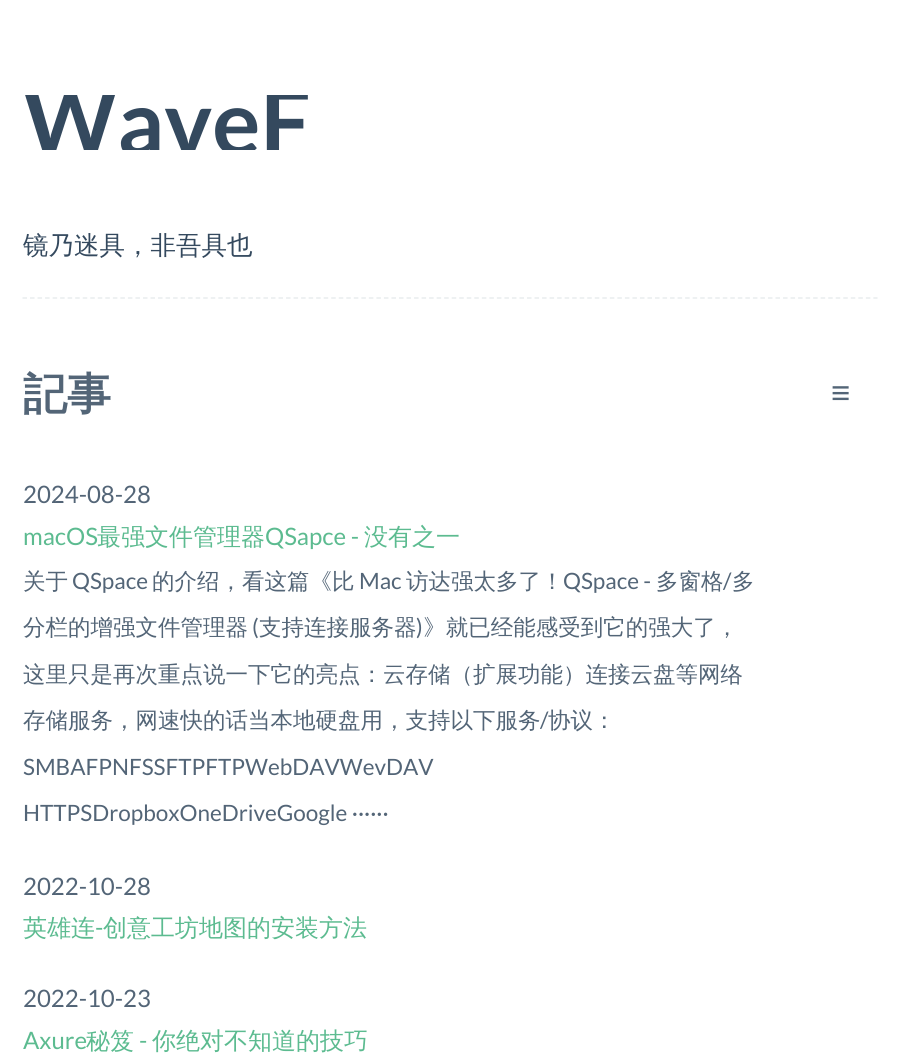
import math
import cairocffi as cairo

surface = cairo.ImageSurface(cairo.FORMAT_RGB24, 900, 1053)
cr = cairo.Context(surface)
options = cairo.FontOptions()
options.set_hint_metrics(cairo.HINT_METRICS_OFF)
options.set_hint_style(cairo.HINT_STYLE_NONE)
cr.set_font_options(options)
cr.set_miter_limit(4)


def use_color(code):
    cr.set_source_rgb(*(v / 255 for v in bytes.fromhex(code[-6:])))


def spaced_text(x, y, s, letter, word):
    cr.move_to(x, y)
    for ch in s:
        cr.show_text(ch)
        cr.rel_move_to(letter + word * (ch == ' '), 0)


use_color("#ffffff")
cr.paint()
cr.save()
cr.rectangle(23, 95, 855, 55)
cr.clip()
cr.select_font_face("Lato", cairo.FONT_SLANT_NORMAL, cairo.FONT_WEIGHT_BOLD)
cr.set_font_size(90)
use_color("#34495e")
cr.move_to(23, 155)
cr.show_text("WaveF")
cr.restore()
cr.select_font_face("WenQuanYi Zen Hei Medium")
cr.set_font_size(25.5)
use_color("#34495e")
cr.move_to(23, 254)
cr.show_text("镜乃迷具，非吾具也")
cr.new_path()
cr.move_to(22.5, 298)
cr.line_to(877.5, 298)
use_color("#e8ecee")
cr.set_line_width(1.5)
cr.set_dash([4.5, 3.03])
cr.stroke()
cr.select_font_face("WenQuanYi Zen Hei", cairo.FONT_SLANT_NORMAL, cairo.FONT_WEIGHT_BOLD)
cr.set_font_size(44)
use_color("#536577")
cr.move_to(23, 409)
cr.show_text("記事")
cr.select_font_face("Liberation Sans")
cr.set_font_size(33)
spaced_text(831, 404, "≡", 10, 0)
cr.select_font_face("Lato")
cr.set_font_size(24)
cr.move_to(23, 503)
cr.show_text("2024-08-28")
use_color("#5cbb90")
cr.move_to(23, 545)
cr.show_text("macOS")
cr.select_font_face("WenQuanYi Zen Hei Medium")
cr.move_to(97, 545)
cr.show_text("最强文件管理器")
cr.select_font_face("Lato")
cr.move_to(265, 545)
cr.show_text("QSapce -")
cr.select_font_face("WenQuanYi Zen Hei Medium")
cr.move_to(364, 545)
cr.show_text("没有之一")
cr.set_font_size(22.5)
use_color("#536577")
cr.move_to(23, 589)
cr.show_text("关于")
cr.select_font_face("Lato")
cr.move_to(72, 589)
cr.show_text("QSpace")
cr.select_font_face("WenQuanYi Zen Hei Medium")
cr.move_to(152, 589)
cr.show_text("的介绍，看这篇《比")
cr.select_font_face("Lato")
cr.move_to(359, 589)
cr.show_text("Mac")
cr.select_font_face("WenQuanYi Zen Hei Medium")
cr.move_to(406, 589)
cr.show_text("访达强太多了！")
cr.select_font_face("Lato")
cr.move_to(563, 589)
cr.show_text("QSpace -")
cr.select_font_face("WenQuanYi Zen Hei Medium")
cr.move_to(656, 589)
cr.show_text("多窗格")
cr.select_font_face("Lato")
cr.move_to(723, 589)
cr.show_text("/")
cr.select_font_face("WenQuanYi Zen Hei Medium")
cr.move_to(732, 589)
cr.show_text("多")
cr.move_to(23, 635)
cr.show_text("分栏的增强文件管理器")
cr.select_font_face("Lato")
cr.move_to(252, 635)
cr.show_text("(")
cr.select_font_face("WenQuanYi Zen Hei Medium")
cr.move_to(259, 635)
cr.show_text("支持连接服务器 》就已经能感受到它的强大了，")
cr.select_font_face("Lato")
cr.move_to(416, 635)
cr.show_text(")")
cr.select_font_face("WenQuanYi Zen Hei Medium")
cr.move_to(23, 682)
cr.show_text("这里只是再次重点说一下它的亮点：云存储（扩展功能）连接云盘等网络")
cr.move_to(23, 728)
cr.show_text("存储服务，网速快的话当本地硬盘用，支持以下服务")
cr.select_font_face("Lato")
cr.move_to(540, 728)
cr.show_text("/")
cr.select_font_face("WenQuanYi Zen Hei Medium")
cr.move_to(548, 728)
cr.show_text("协议：")
cr.select_font_face("Lato")
cr.move_to(23, 775)
cr.show_text("SMBAFPNFSSFTPFTPWebDAVWevDAV")
cr.move_to(23, 821)
cr.show_text("HTTPSDropboxOneDriveGoogle ······")
cr.set_font_size(24)
cr.move_to(23, 895)
cr.show_text("2022-10-28")
cr.select_font_face("WenQuanYi Zen Hei Medium")
use_color("#5cbb90")
cr.move_to(23, 936)
cr.show_text("英雄连")
cr.select_font_face("Lato")
cr.move_to(95, 936)
cr.show_text("-")
cr.select_font_face("WenQuanYi Zen Hei Medium")
cr.move_to(103, 936)
cr.show_text("创意工坊地图的安装方法")
cr.select_font_face("Lato")
use_color("#536577")
cr.move_to(23, 1007)
cr.show_text("2022-10-23")
use_color("#5cbb90")
cr.move_to(23, 1049)
cr.show_text("Axure")
cr.select_font_face("WenQuanYi Zen Hei Medium")
cr.move_to(86, 1049)
cr.show_text("秘笈")
cr.select_font_face("Lato")
cr.move_to(139, 1049)
cr.show_text("-")
cr.select_font_face("WenQuanYi Zen Hei Medium")
cr.move_to(152, 1049)
cr.show_text("你绝对不知道的技巧")
surface.write_to_png("result.png")
